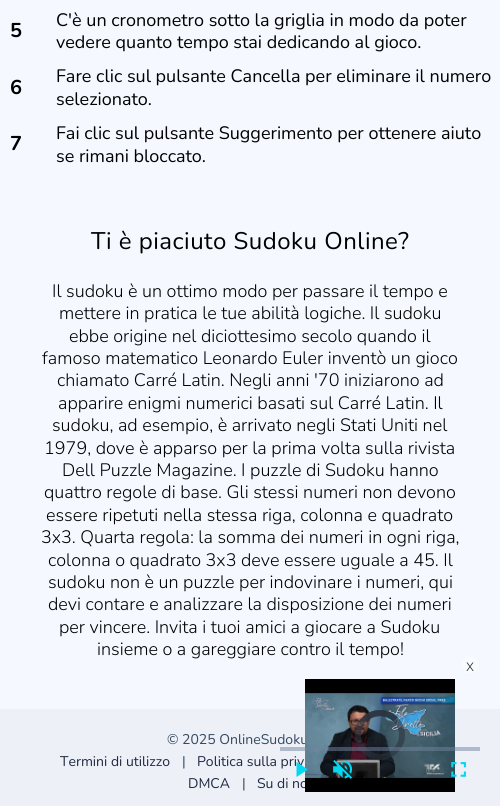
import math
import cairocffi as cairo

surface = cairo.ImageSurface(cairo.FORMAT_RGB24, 500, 806)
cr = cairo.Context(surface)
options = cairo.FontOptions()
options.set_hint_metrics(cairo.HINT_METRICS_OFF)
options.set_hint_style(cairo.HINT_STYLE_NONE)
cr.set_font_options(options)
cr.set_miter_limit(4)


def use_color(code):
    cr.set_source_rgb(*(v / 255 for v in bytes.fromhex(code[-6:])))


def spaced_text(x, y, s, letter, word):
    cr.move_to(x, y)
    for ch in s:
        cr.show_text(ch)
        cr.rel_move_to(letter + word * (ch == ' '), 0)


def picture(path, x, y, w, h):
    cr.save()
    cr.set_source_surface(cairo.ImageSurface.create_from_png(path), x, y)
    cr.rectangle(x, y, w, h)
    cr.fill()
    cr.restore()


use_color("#f5f9ff")
cr.paint()
cr.select_font_face("Nunito", cairo.FONT_SLANT_NORMAL, cairo.FONT_WEIGHT_BOLD)
cr.set_font_size(20)
use_color("#000000")
cr.move_to(10, 37)
cr.show_text("5")
cr.select_font_face("Nunito")
cr.set_font_size(18)
cr.move_to(56, 26)
cr.show_text("C'è un cronometro sotto la griglia in modo da poter")
cr.move_to(56, 48)
cr.show_text("vedere quanto tempo stai dedicando al gioco.")
cr.select_font_face("Nunito", cairo.FONT_SLANT_NORMAL, cairo.FONT_WEIGHT_BOLD)
cr.set_font_size(20)
cr.move_to(10, 94)
cr.show_text("6")
cr.select_font_face("Nunito")
cr.set_font_size(18)
cr.move_to(56, 82)
cr.show_text("Fare clic sul pulsante Cancella per eliminare il numero")
cr.move_to(56, 105)
cr.show_text("selezionato.")
cr.select_font_face("Nunito", cairo.FONT_SLANT_NORMAL, cairo.FONT_WEIGHT_BOLD)
cr.set_font_size(20)
cr.move_to(10, 150)
cr.show_text("7")
cr.select_font_face("Nunito")
cr.set_font_size(18)
cr.move_to(56, 139)
cr.show_text("Fai clic sul pulsante Suggerimento per ottenere aiuto")
cr.move_to(56, 162)
cr.show_text("se rimani bloccato.")
cr.set_font_size(24)
spaced_text(91, 249, "Ti è piaciuto Sudoku Online?", 0.5, 0)
cr.select_font_face("Nunito Light")
cr.set_font_size(18)
cr.move_to(52, 297)
cr.show_text("Il sudoku è un ottimo modo per passare il tempo e")
cr.move_to(59, 319)
cr.show_text("mettere in pratica le tue abilità logiche. Il sudoku")
cr.move_to(69, 342)
cr.show_text("ebbe origine nel diciottesimo secolo quando il")
cr.move_to(42, 364)
cr.show_text("famoso matematico Leonardo Euler inventò un gioco")
cr.move_to(57, 386)
cr.show_text("chiamato Carré Latin. Negli anni '70 iniziarono ad")
cr.move_to(58, 409)
cr.show_text("apparire enigmi numerici basati sul Carré Latin. Il")
cr.move_to(52, 431)
cr.show_text("sudoku, ad esempio, è arrivato negli Stati Uniti nel")
cr.move_to(44, 454)
cr.show_text("1979, dove è apparso per la prima volta sulla rivista")
cr.move_to(62, 476)
cr.show_text("Dell Puzzle Magazine. I puzzle di Sudoku hanno")
cr.move_to(44, 498)
cr.show_text("quattro regole di base. Gli stessi numeri non devono")
cr.move_to(46, 521)
cr.show_text("essere ripetuti nella stessa riga, colonna e quadrato")
cr.move_to(41, 543)
cr.show_text("3x3. Quarta regola: la somma dei numeri in ogni riga,")
cr.move_to(48, 566)
cr.show_text("colonna o quadrato 3x3 deve essere uguale a 45. Il")
cr.move_to(48, 588)
cr.show_text("sudoku non è un puzzle per indovinare i numeri, qui")
cr.move_to(48, 610)
cr.show_text("devi contare e analizzare la disposizione dei numeri")
cr.move_to(59, 633)
cr.show_text("per vincere. Invita i tuoi amici a giocare a Sudoku")
cr.move_to(97, 655)
cr.show_text("insieme o a gareggiare contro il tempo!")
use_color("#edf1f7")
cr.rectangle(0, 709, 500, 97)
cr.fill()
cr.select_font_face("Nunito")
cr.set_font_size(14)
use_color("#344860")
cr.move_to(167, 744)
cr.show_text("© 2025 OnlineSudoku")
use_color("#202942")
cr.move_to(60, 766)
cr.show_text("Termini di utilizzo")
use_color("#344860")
cr.move_to(182, 766)
cr.show_text("|")
use_color("#202942")
cr.move_to(197, 766)
cr.show_text("Politica sulla priv")
cr.move_to(188, 788)
cr.show_text("DMCA")
use_color("#344860")
cr.move_to(242, 788)
cr.show_text("|")
use_color("#202942")
cr.move_to(257, 788)
cr.show_text("Su di no")
use_color("#f9fcff")
cr.new_path()
cr.arc(470, 665, 8, 0, 2 * math.pi)
cr.fill()
cr.select_font_face("Noto Sans Light")
cr.set_font_size(16)
use_color("#313233")
cr.move_to(466, 671)
cr.show_text("x")
picture("img1.png", 305, 679, 150, 113)
cr.arc(380, 735, 22, 0, 2 * math.pi)
cr.set_source_rgba(0.169, 0.2, 0.247, 0.59)
cr.set_line_width(6)
cr.stroke()
cr.new_path()
cr.move_to(364.5, 719.5)
cr.curve_to(373, 711, 387, 711, 395.5, 719.5)
cr.stroke()
cr.new_path()
cr.move_to(364.5, 719.5)
cr.curve_to(373, 711, 387, 711, 395.5, 719.5)
cr.stroke()
cr.set_source_rgba(0.451, 0.522, 0.624, 0.5)
cr.rectangle(280, 747, 200, 4)
cr.fill()
use_color("#03d8f3")
cr.new_path()
cr.move_to(296.5, 762)
cr.line_to(296.5, 777)
cr.line_to(308, 769.5)
cr.close_path()
cr.fill()
picture("img2.png", 333, 760, 20, 19)
picture("img3.png", 451, 762, 15, 15)
surface.write_to_png("result.png")
